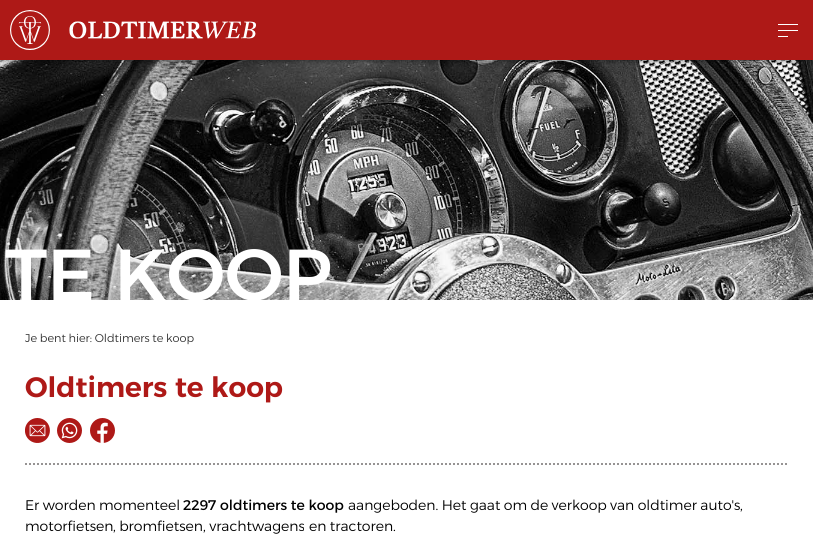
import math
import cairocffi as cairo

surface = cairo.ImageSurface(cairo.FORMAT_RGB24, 813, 547)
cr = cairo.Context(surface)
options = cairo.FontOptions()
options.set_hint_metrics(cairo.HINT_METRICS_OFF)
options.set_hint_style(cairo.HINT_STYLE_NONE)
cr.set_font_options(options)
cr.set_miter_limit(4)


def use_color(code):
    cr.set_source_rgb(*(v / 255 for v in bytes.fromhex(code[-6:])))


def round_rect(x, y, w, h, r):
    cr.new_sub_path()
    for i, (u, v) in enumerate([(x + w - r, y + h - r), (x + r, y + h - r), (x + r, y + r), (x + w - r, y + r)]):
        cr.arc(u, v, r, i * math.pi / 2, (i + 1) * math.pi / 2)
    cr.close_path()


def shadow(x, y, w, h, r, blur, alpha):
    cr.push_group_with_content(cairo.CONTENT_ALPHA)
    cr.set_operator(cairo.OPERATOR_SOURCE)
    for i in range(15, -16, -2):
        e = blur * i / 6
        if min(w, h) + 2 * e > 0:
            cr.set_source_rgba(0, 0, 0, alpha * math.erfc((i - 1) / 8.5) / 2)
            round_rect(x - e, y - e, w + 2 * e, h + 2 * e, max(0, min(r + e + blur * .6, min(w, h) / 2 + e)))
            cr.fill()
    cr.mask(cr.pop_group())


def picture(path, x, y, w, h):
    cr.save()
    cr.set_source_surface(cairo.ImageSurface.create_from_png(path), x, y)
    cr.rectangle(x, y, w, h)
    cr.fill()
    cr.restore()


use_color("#ffffff")
cr.paint()
picture("img2.png", 0, 60, 813, 240)
use_color("#000000")
shadow(0, 2, 813, 60, 0, 2, 0.3)
use_color("#ae1917")
cr.rectangle(0, 0, 813, 60)
cr.fill()
picture("img1.png", 10, 10, 246, 40)
use_color("#ffffff")
cr.rectangle(778, 24, 20, 1)
cr.fill()
cr.rectangle(778, 30, 20, 1)
cr.fill()
cr.rectangle(778, 36, 10, 1)
cr.fill()
cr.select_font_face("Alexandria Medium")
cr.set_font_size(72)
cr.move_to(5, 300)
cr.show_text("TE KOOP")
cr.select_font_face("Alexandria Light")
cr.set_font_size(11.25)
use_color("#333333")
cr.move_to(25, 342)
cr.show_text("Je bent hier: Oldtimers te koop")
cr.new_path()
cr.move_to(25, 464)
cr.line_to(788, 464)
use_color("#969393")
cr.set_dash([2, 2])
cr.stroke()
cr.select_font_face("Alexandria SemiBold")
cr.set_font_size(28)
use_color("#ae1917")
cr.move_to(25, 397)
cr.show_text("Oldtimers te koop")
picture("img3.png", 25, 418, 25, 25)
picture("img4.png", 57, 418, 25, 25)
picture("img5.png", 90, 418, 25, 25)
cr.select_font_face("Alexandria Light")
cr.set_font_size(14)
use_color("#000000")
cr.move_to(25, 510)
cr.show_text("Er worden momenteel")
cr.select_font_face("Alexandria")
cr.move_to(183, 510)
cr.show_text("2297 oldtimers te koop")
cr.select_font_face("Alexandria Light")
cr.move_to(348, 510)
cr.show_text("aangeboden. Het gaat om de verkoop")
cr.move_to(610, 510)
cr.show_text("van oldtimer auto's")
cr.move_to(740, 510)
cr.show_text(",")
cr.move_to(25, 531)
cr.show_text("motorfietsen")
cr.move_to(113, 531)
cr.show_text(", bromfietsen")
cr.move_to(203, 531)
cr.show_text(", vrachtwagens")
cr.move_to(309, 531)
cr.show_text("en tractoren")
cr.move_to(393, 531)
cr.show_text(".")
surface.write_to_png("result.png")
